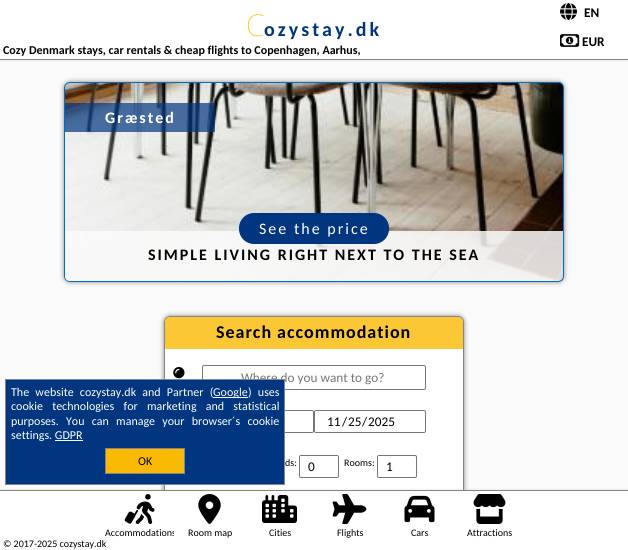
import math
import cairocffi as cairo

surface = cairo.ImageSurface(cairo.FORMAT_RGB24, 628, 550)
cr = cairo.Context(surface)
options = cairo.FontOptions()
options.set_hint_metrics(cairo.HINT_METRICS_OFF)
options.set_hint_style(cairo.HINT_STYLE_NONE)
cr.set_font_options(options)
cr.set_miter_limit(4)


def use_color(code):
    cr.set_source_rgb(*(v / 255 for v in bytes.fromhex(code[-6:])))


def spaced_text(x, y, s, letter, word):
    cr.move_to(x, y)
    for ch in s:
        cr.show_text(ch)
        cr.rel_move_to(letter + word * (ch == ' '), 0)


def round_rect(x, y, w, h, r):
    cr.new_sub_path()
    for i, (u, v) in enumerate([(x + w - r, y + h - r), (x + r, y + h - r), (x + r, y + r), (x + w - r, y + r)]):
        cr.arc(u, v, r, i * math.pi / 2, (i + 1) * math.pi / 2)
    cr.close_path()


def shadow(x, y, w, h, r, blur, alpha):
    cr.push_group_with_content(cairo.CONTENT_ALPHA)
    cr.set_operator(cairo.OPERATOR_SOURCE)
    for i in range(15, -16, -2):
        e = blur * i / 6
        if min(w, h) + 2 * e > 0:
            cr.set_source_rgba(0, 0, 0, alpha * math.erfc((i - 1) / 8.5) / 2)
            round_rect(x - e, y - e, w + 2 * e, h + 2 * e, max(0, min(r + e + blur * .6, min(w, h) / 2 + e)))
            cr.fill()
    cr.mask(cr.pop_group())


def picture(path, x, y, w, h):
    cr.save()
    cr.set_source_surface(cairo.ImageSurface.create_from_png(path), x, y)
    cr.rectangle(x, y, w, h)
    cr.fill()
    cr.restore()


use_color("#fafafa")
cr.paint()
use_color("#858585")
shadow(0, -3, 628, 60, 0, 2.5, 1)
use_color("#ffffff")
cr.rectangle(0, 0, 628, 59)
cr.fill()
use_color("#858585")
cr.rectangle(0, 59, 628, 1)
cr.fill()
picture("img1.png", 560, 3, 17, 17)
cr.select_font_face("Carlito", cairo.FONT_SLANT_NORMAL, cairo.FONT_WEIGHT_BOLD)
cr.set_font_size(13.25)
use_color("#000000")
cr.move_to(584, 17)
cr.show_text("EN")
cr.select_font_face("Noto Sans Thin")
cr.set_font_size(30)
use_color("#fab902")
spaced_text(246, 36, "C", 3, 0)
cr.select_font_face("Carlito", cairo.FONT_SLANT_NORMAL, cairo.FONT_WEIGHT_BOLD)
cr.set_font_size(20)
use_color("#00367f")
spaced_text(264, 36, "ozystay.dk", 3, 0)
picture("img2.png", 560, 34, 20, 13)
cr.set_font_size(13.25)
use_color("#000000")
cr.move_to(582, 46)
cr.show_text("EUR")
cr.set_font_size(12)
cr.move_to(3, 54)
cr.show_text("Cozy Denmark stays, car rentals & cheap flights to Copenhagen, Aarhus,")
use_color("#858585")
shadow(64, 82, 500, 200, 6, 2.5, 1)
picture("img3.png", 65, 82, 498, 199)
round_rect(64.5, 82.5, 499, 199, 5.5)
use_color("#006ec5")
cr.set_line_width(1)
cr.stroke()
cr.set_source_rgba(0, 0.212, 0.498, 0.7)
cr.rectangle(65, 103, 150, 29)
cr.fill()
cr.set_font_size(16)
use_color("#ffffff")
spaced_text(105, 123, "Græsted", 2, 0)
cr.set_source_rgba(0.98, 0.98, 0.98, 0.85)
cr.new_path()
cr.move_to(65, 231)
cr.line_to(563, 231)
cr.line_to(563, 276)
cr.curve_to(563, 279, 561, 281, 558, 281)
cr.line_to(70, 281)
cr.curve_to(67, 281, 65, 279, 65, 276)
cr.close_path()
cr.fill()
use_color("#00367f")
round_rect(239, 213, 150, 31, 15)
cr.fill()
cr.select_font_face("Carlito")
use_color("#ffffff")
spaced_text(259, 234, "See the price", 2, 0)
cr.select_font_face("Carlito", cairo.FONT_SLANT_NORMAL, cairo.FONT_WEIGHT_BOLD)
use_color("#000000")
spaced_text(148, 260, "SIMPLE LIVING RIGHT NEXT TO THE SEA", 2, 0)
use_color("#858585")
shadow(164, 316, 300, 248, 6, 2.5, 1)
use_color("#ffffff")
round_rect(164.5, 316.5, 299, 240, 5.5)
cr.fill_preserve()
use_color("#858585")
cr.stroke()
cr.set_source_rgba(0.98, 0.725, 0.008, 0.8)
cr.new_path()
cr.move_to(170, 317)
cr.line_to(458, 317)
cr.curve_to(461, 317, 463, 319, 463, 322)
cr.line_to(463, 349)
cr.line_to(165, 349)
cr.line_to(165, 322)
cr.curve_to(165, 319, 167, 317, 170, 317)
cr.close_path()
cr.fill()
cr.set_font_size(18)
use_color("#000000")
spaced_text(216, 338, "Search accommodation", 1, 0)
picture("img4.png", 173, 367, 12, 12)
round_rect(202.5, 365.5, 223, 24, 1.5)
use_color("#767676")
cr.stroke()
cr.select_font_face("Carlito")
cr.set_font_size(13.25)
use_color("#757575")
cr.move_to(241, 382)
cr.show_text("Where do you want to go?")
round_rect(202.5, 410.5, 111, 22, 1.5)
use_color("#767676")
cr.stroke()
round_rect(314.5, 410.5, 111, 22, 1.5)
cr.stroke()
use_color("#000000")
cr.move_to(327, 426)
cr.show_text("11")
cr.move_to(342, 426)
cr.show_text("/")
cr.move_to(348, 426)
cr.show_text("25")
cr.move_to(362, 426)
cr.show_text("/")
cr.move_to(368, 426)
cr.show_text("2025")
cr.set_font_size(10)
cr.move_to(285, 466)
cr.show_text("ds:")
round_rect(299.5, 455.5, 39, 22, 1.5)
use_color("#767676")
cr.stroke()
cr.set_font_size(13.25)
use_color("#000000")
cr.move_to(308, 471)
cr.show_text("0")
cr.set_font_size(10)
cr.move_to(344, 466)
cr.show_text("Rooms:")
round_rect(377.5, 455.5, 39, 22, 1.5)
use_color("#767676")
cr.stroke()
cr.set_font_size(13.25)
use_color("#000000")
cr.move_to(386, 471)
cr.show_text("1")
use_color("#858585")
shadow(0, 493, 628, 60, 0, 2.5, 1)
use_color("#00367f")
cr.rectangle(5.5, 379.5, 279, 105)
cr.fill_preserve()
use_color("#858585")
cr.stroke()
cr.set_font_size(12)
use_color("#ffffff")
spaced_text(11, 396, "The website cozystay.dk and Partner (", 0, 3.5)
cr.rectangle(213, 397, 35, 1)
cr.fill()
cr.move_to(213, 396)
cr.show_text("Google")
spaced_text(248, 396, ") uses", 0, 3.5)
spaced_text(11, 410, "cookie technologies for marketing and statistical", 0, 6.5)
spaced_text(11, 425, "purposes. You can manage your browser´s cookie", 0, 4.5)
cr.move_to(11, 439)
cr.show_text("settings. GDPR")
cr.rectangle(55, 440, 28, 1)
cr.fill()
use_color("#fab902")
cr.rectangle(105.5, 448.5, 79, 25)
cr.fill_preserve()
use_color("#858585")
cr.stroke()
use_color("#000000")
cr.move_to(138, 465)
cr.show_text("OK")
use_color("#ffffff")
cr.rectangle(0, 491, 628, 59)
cr.fill()
use_color("#858585")
cr.rectangle(0, 490, 628, 1)
cr.fill()
picture("img5.png", 124, 494, 31, 30)
cr.save()
cr.rectangle(104, 494, 70, 45)
cr.clip()
cr.set_font_size(10)
use_color("#000000")
cr.move_to(105, 536)
cr.show_text("Accommodations")
cr.restore()
picture("img6.png", 198, 494, 23, 30)
cr.set_font_size(10)
use_color("#000000")
cr.move_to(188, 536)
cr.show_text("Room map")
picture("img7.png", 262, 495, 35, 28)
cr.move_to(269, 536)
cr.show_text("Cities")
picture("img8.png", 332, 494, 35, 30)
cr.move_to(337, 536)
cr.show_text("Flights")
picture("img9.png", 404, 495, 31, 28)
cr.move_to(411, 536)
cr.show_text("Cars")
picture("img10.png", 473, 494, 33, 30)
cr.move_to(467, 536)
cr.show_text("Attractions")
cr.move_to(3, 547)
cr.show_text("© 2017-2025 cozystay.dk")
surface.write_to_png("result.png")
